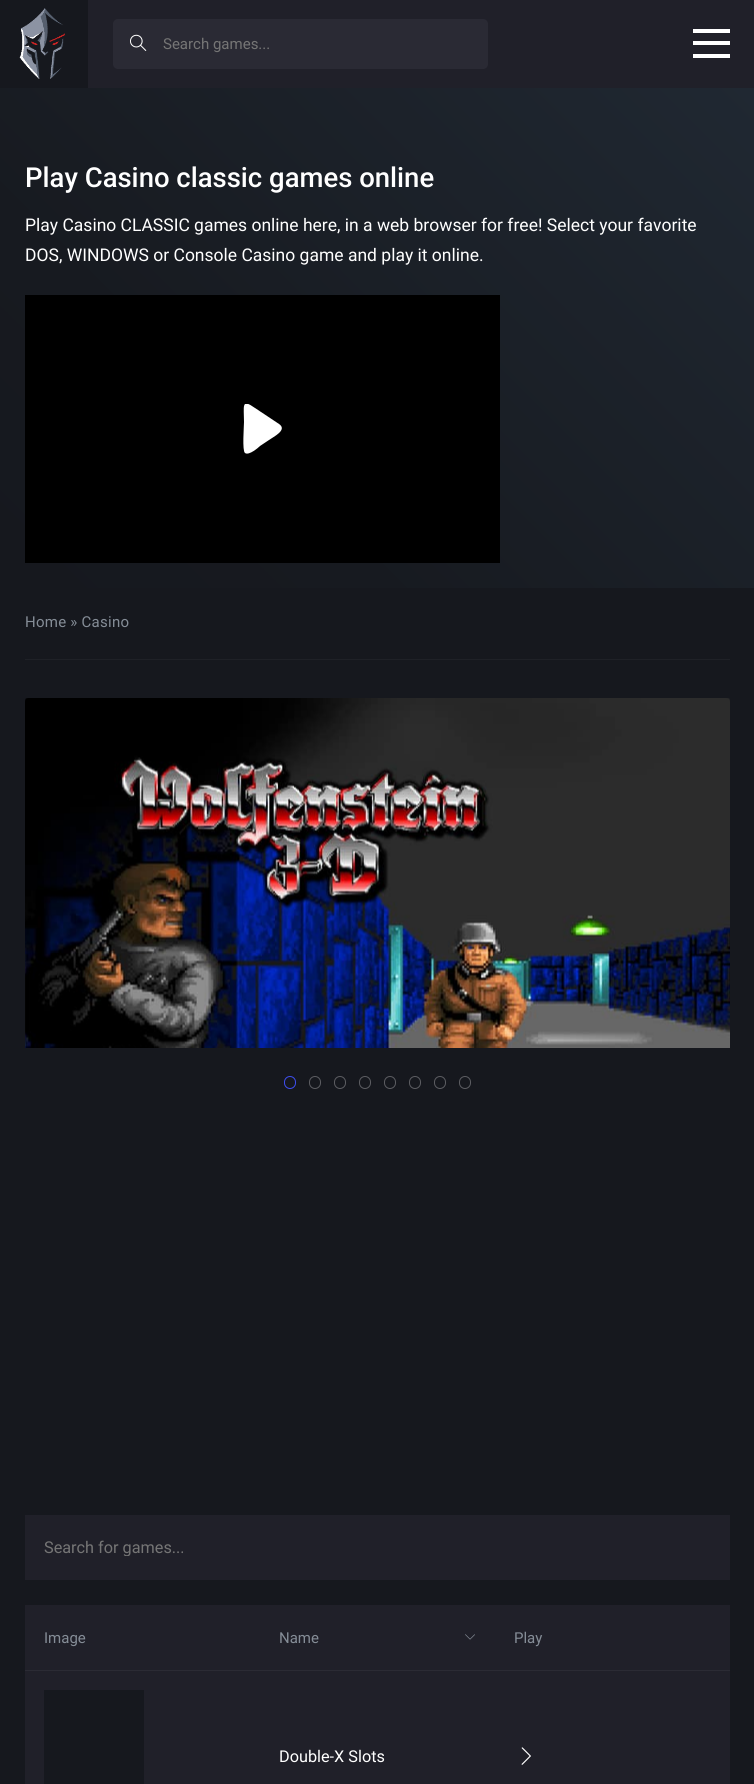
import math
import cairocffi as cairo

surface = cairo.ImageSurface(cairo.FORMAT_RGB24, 754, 1784)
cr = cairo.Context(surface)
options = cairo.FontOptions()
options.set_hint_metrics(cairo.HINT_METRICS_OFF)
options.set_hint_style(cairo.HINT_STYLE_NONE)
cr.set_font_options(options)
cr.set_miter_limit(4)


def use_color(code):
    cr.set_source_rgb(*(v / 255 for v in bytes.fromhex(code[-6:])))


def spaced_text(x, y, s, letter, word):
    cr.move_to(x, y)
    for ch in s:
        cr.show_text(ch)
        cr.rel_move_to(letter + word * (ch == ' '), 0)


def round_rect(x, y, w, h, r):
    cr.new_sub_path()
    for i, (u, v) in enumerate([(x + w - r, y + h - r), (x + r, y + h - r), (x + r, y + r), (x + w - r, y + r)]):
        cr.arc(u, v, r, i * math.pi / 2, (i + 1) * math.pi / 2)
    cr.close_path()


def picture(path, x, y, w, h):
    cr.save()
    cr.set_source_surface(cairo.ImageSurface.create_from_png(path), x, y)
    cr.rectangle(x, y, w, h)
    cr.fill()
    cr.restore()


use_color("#16181e")
cr.paint()
use_color("#202029")
cr.rectangle(88, 0, 666, 88)
cr.fill()
picture("img1.png", 19, 8, 46, 71)
use_color("#2a2a34")
round_rect(113, 19, 375, 50, 5)
cr.fill()
picture("img2.png", 130, 34, 17, 17)
cr.select_font_face("Roboto")
cr.set_font_size(15)
use_color("#757575")
cr.move_to(163, 49)
cr.show_text("Search games...")
use_color("#ffffff")
cr.rectangle(693, 41, 37, 4)
cr.fill()
cr.rectangle(693, 29, 37, 4)
cr.fill()
cr.rectangle(693, 54, 37, 4)
cr.fill()
gradient = cairo.LinearGradient(64, 651, 691, 24)
gradient.add_color_stop_rgba(0, 0.086, 0.094, 0.118, 1)
gradient.add_color_stop_rgba(0.3, 0.09, 0.102, 0.125, 1)
gradient.add_color_stop_rgba(1, 0.125, 0.157, 0.196, 1)
cr.set_source(gradient)
cr.rectangle(0, 88, 754, 500)
cr.fill()
cr.select_font_face("Roboto Medium")
cr.set_font_size(27.5)
use_color("#ffffff")
cr.move_to(25, 187)
cr.show_text("Play Casino classic games online")
cr.select_font_face("Roboto")
cr.set_font_size(17.5)
cr.move_to(25, 231)
cr.show_text("Play Casino CLASSIC games online here, in a web browser for free! Select your favorite")
cr.move_to(25, 261)
cr.show_text("DOS, WINDOWS or Console Casino game and play it online.")
use_color("#000000")
cr.rectangle(25, 295, 475, 268)
cr.fill()
cr.save()
cr.rectangle(238, 404, 50, 50)
cr.clip()
use_color("#ffffff")
cr.new_path()
cr.move_to(279, 424)
cr.line_to(255, 408)
cr.curve_to(241, 398, 244, 406, 244, 422)
cr.curve_to(244, 426, 242, 451, 245, 453)
cr.curve_to(249, 456, 259, 447, 260, 446)
cr.line_to(269, 440)
cr.curve_to(273, 437, 288, 430, 279, 424)
cr.close_path()
cr.fill()
cr.restore()
use_color("#1f2127")
cr.rectangle(25, 659, 705, 1)
cr.fill()
cr.set_font_size(15)
use_color("#858d97")
spaced_text(25, 627, "Home » Casino", 0.25, 0)
picture("img3.png", 25, 698, 705, 350)
round_rect(284.5, 1076.5, 11, 12, 5.5)
use_color("#3e4ef0")
cr.set_line_width(1)
cr.stroke()
round_rect(309.5, 1076.5, 11, 12, 5.5)
use_color("#5c5d62")
cr.stroke()
round_rect(334.5, 1076.5, 11, 12, 5.5)
cr.stroke()
round_rect(359.5, 1076.5, 11, 12, 5.5)
cr.stroke()
round_rect(384.5, 1076.5, 11, 12, 5.5)
cr.stroke()
round_rect(409.5, 1076.5, 11, 12, 5.5)
cr.stroke()
round_rect(434.5, 1076.5, 11, 12, 5.5)
cr.stroke()
round_rect(459.5, 1076.5, 11, 12, 5.5)
cr.stroke()
use_color("#202029")
cr.rectangle(25, 1515, 705, 65)
cr.fill()
cr.save()
cr.rectangle(44, 1538, 667, 18)
cr.clip()
cr.set_font_size(16.25)
use_color("#757575")
cr.move_to(44, 1553)
cr.show_text("Search for games...")
cr.restore()
cr.rectangle(25, 1605, 705, 179)
cr.fill()
use_color("#2b2b34")
cr.rectangle(25, 1670, 705, 1)
cr.fill()
use_color("#858d97")
cr.move_to(44, 1643)
cr.show_text("Image")
cr.move_to(279, 1643)
cr.show_text("Name")
picture("img4.png", 465, 1634, 10, 6)
cr.move_to(514, 1643)
cr.show_text("Play")
use_color("#16181e")
cr.rectangle(44, 1690, 100, 94)
cr.fill()
cr.set_font_size(16.25)
use_color("#ffffff")
cr.move_to(279, 1762)
cr.show_text("Double-X Slots")
picture("img5.png", 521, 1747, 10, 18)
surface.write_to_png("result.png")
